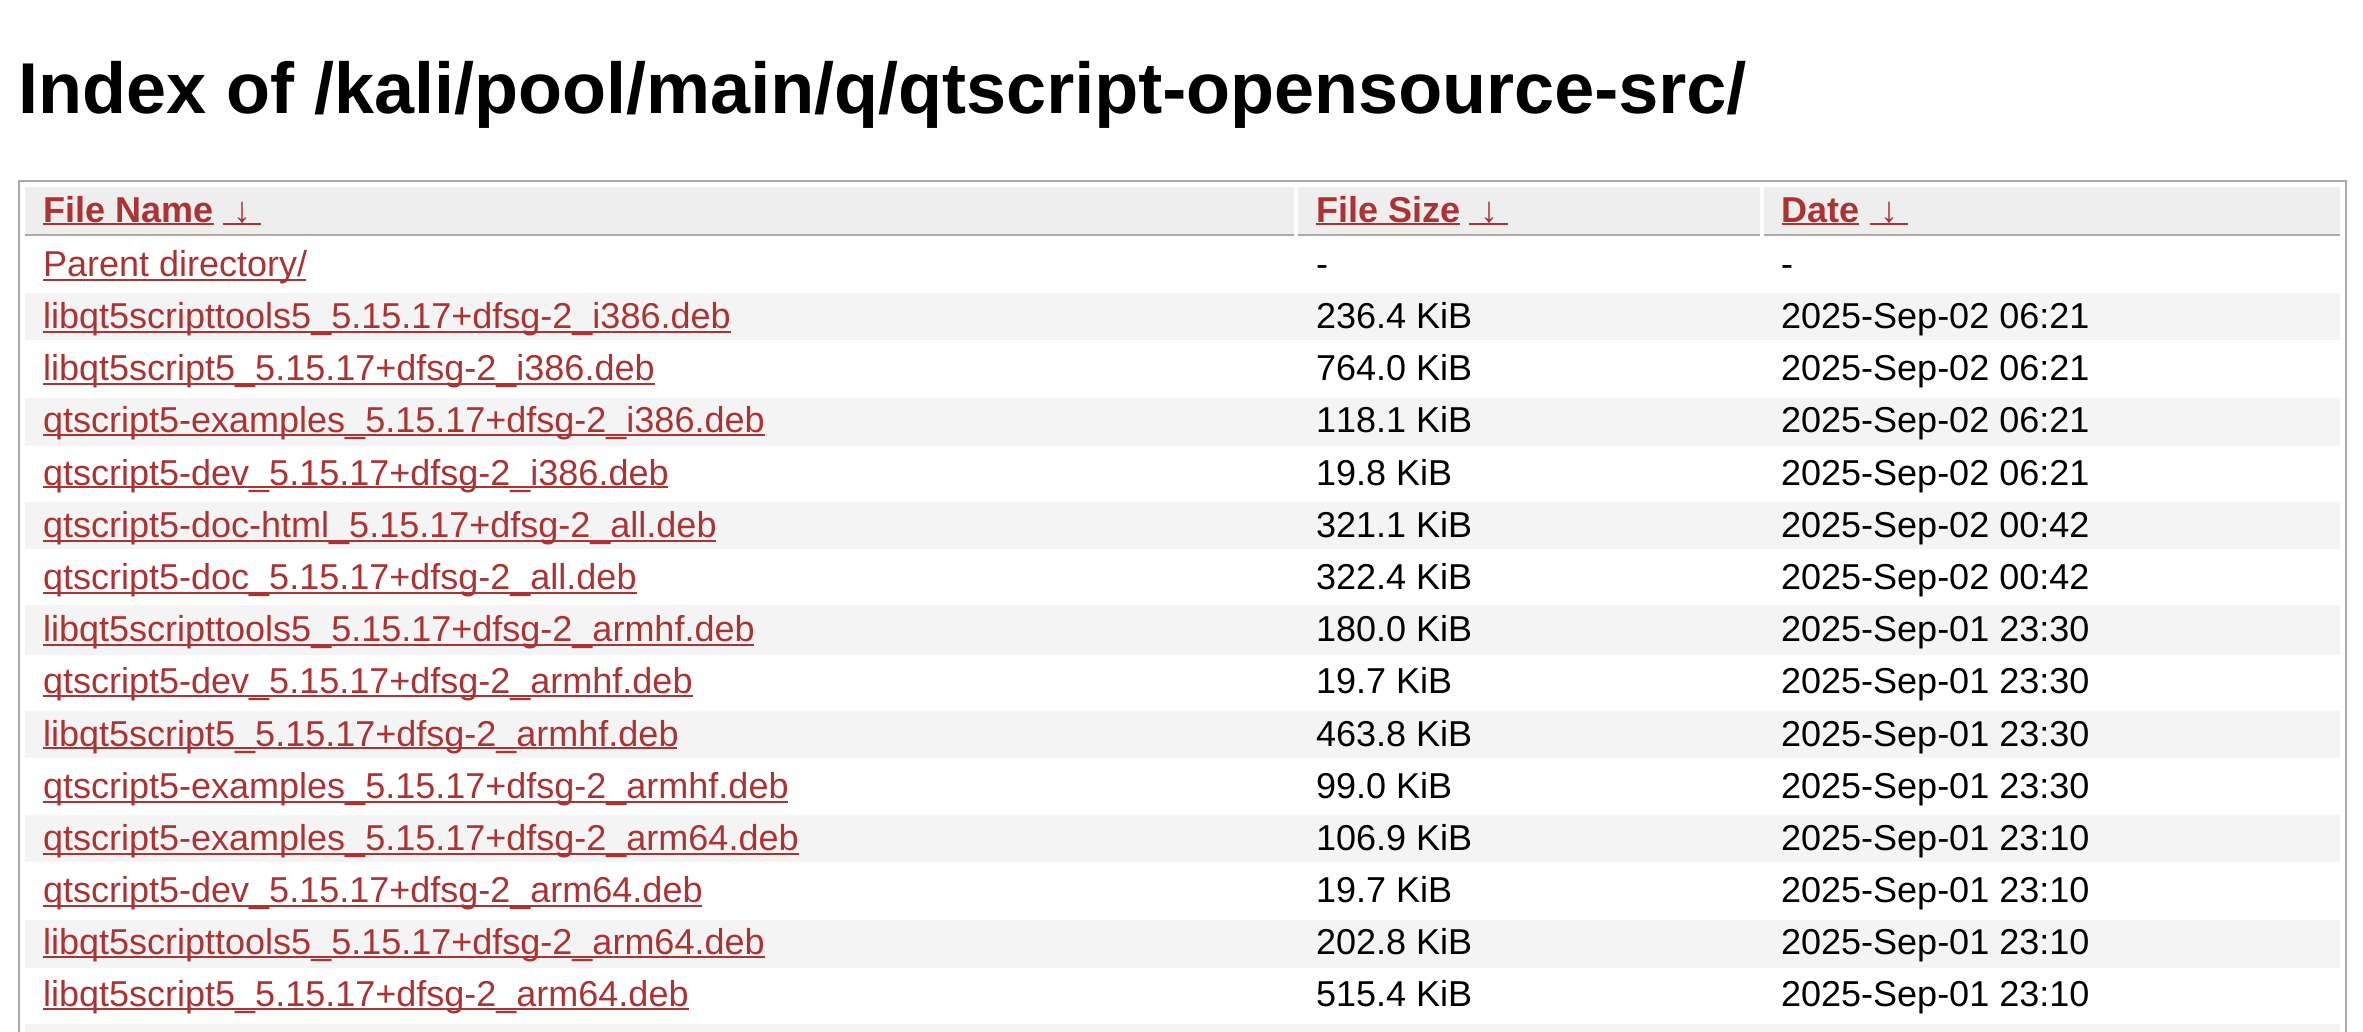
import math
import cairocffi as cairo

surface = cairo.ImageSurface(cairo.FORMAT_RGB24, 2363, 1032)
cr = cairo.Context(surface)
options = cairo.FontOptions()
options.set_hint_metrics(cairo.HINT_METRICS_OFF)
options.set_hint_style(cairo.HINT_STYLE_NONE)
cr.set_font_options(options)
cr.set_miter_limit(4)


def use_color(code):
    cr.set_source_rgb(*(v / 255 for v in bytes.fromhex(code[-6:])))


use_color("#ffffff")
cr.paint()
cr.select_font_face("Liberation Sans", cairo.FONT_SLANT_NORMAL, cairo.FONT_WEIGHT_BOLD)
cr.set_font_size(72)
use_color("#000000")
cr.move_to(18, 113)
cr.show_text("Index of /kali/pool/main/q/qtscript-opensource-src/")
cr.rectangle(19, 181, 2327, 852)
use_color("#aaaaaa")
cr.stroke()
use_color("#eeeeee")
cr.rectangle(25, 187, 1269, 47)
cr.fill()
use_color("#aaaaaa")
cr.rectangle(25, 234, 1269, 2)
cr.fill()
cr.set_font_size(36)
use_color("#aa3333")
cr.move_to(43, 222)
cr.show_text("File Name")
cr.rectangle(43, 223, 171, 2)
cr.fill()
cr.rectangle(223, 223, 38, 2)
cr.fill()
cr.move_to(233, 222)
cr.show_text("↓")
use_color("#eeeeee")
cr.rectangle(1298, 187, 462, 47)
cr.fill()
use_color("#aaaaaa")
cr.rectangle(1298, 234, 462, 2)
cr.fill()
use_color("#aa3333")
cr.move_to(1316, 222)
cr.show_text("File Size")
cr.rectangle(1316, 223, 144, 2)
cr.fill()
cr.rectangle(1469, 223, 39, 2)
cr.fill()
cr.move_to(1480, 222)
cr.show_text("↓")
use_color("#eeeeee")
cr.rectangle(1764, 187, 576, 47)
cr.fill()
use_color("#aaaaaa")
cr.rectangle(1764, 234, 576, 2)
cr.fill()
use_color("#aa3333")
cr.move_to(1781, 222)
cr.show_text("Date")
cr.rectangle(1782, 223, 77, 2)
cr.fill()
cr.rectangle(1870, 223, 38, 2)
cr.fill()
cr.move_to(1880, 222)
cr.show_text("↓")
cr.rectangle(43, 279, 263, 2)
cr.fill()
cr.select_font_face("Liberation Sans")
cr.move_to(43, 276)
cr.show_text("Parent directory/")
use_color("#000000")
cr.move_to(1316, 276)
cr.show_text("-")
cr.move_to(1781, 276)
cr.show_text("-")
use_color("#f4f4f4")
cr.rectangle(25, 293, 2315, 47)
cr.fill()
use_color("#aa3333")
cr.rectangle(43, 331, 688, 2)
cr.fill()
cr.move_to(43, 328)
cr.show_text("libqt5scripttools5_5.15.17+dfsg-2_i386.deb")
use_color("#000000")
cr.move_to(1316, 328)
cr.show_text("236.4 KiB")
cr.move_to(1781, 328)
cr.show_text("2025-Sep-02 06:21")
use_color("#aa3333")
cr.rectangle(43, 383, 612, 2)
cr.fill()
cr.move_to(43, 380)
cr.show_text("libqt5script5_5.15.17+dfsg-2_i386.deb")
use_color("#000000")
cr.move_to(1316, 380)
cr.show_text("764.0 KiB")
cr.move_to(1781, 380)
cr.show_text("2025-Sep-02 06:21")
use_color("#f4f4f4")
cr.rectangle(25, 398, 2315, 48)
cr.fill()
use_color("#aa3333")
cr.rectangle(43, 434, 722, 2)
cr.fill()
cr.move_to(43, 432)
cr.show_text("qtscript5-examples_5.15.17+dfsg-2_i386.deb")
use_color("#000000")
cr.move_to(1316, 432)
cr.show_text("118.1 KiB")
cr.move_to(1781, 432)
cr.show_text("2025-Sep-02 06:21")
use_color("#aa3333")
cr.rectangle(43, 486, 625, 2)
cr.fill()
cr.move_to(43, 485)
cr.show_text("qtscript5-dev_5.15.17+dfsg-2_i386.deb")
use_color("#000000")
cr.move_to(1316, 485)
cr.show_text("19.8 KiB")
cr.move_to(1781, 485)
cr.show_text("2025-Sep-02 06:21")
use_color("#f4f4f4")
cr.rectangle(25, 502, 2315, 47)
cr.fill()
use_color("#aa3333")
cr.rectangle(43, 540, 673, 2)
cr.fill()
cr.move_to(43, 537)
cr.show_text("qtscript5-doc-html_5.15.17+dfsg-2_all.deb")
use_color("#000000")
cr.move_to(1316, 537)
cr.show_text("321.1 KiB")
cr.move_to(1781, 537)
cr.show_text("2025-Sep-02 00:42")
use_color("#aa3333")
cr.rectangle(43, 592, 594, 2)
cr.fill()
cr.move_to(43, 589)
cr.show_text("qtscript5-doc_5.15.17+dfsg-2_all.deb")
use_color("#000000")
cr.move_to(1316, 589)
cr.show_text("322.4 KiB")
cr.move_to(1781, 589)
cr.show_text("2025-Sep-02 00:42")
use_color("#f4f4f4")
cr.rectangle(25, 605, 2315, 50)
cr.fill()
use_color("#aa3333")
cr.rectangle(43, 644, 711, 2)
cr.fill()
cr.move_to(43, 641)
cr.show_text("libqt5scripttools5_5.15.17+dfsg-2_armhf.deb")
use_color("#000000")
cr.move_to(1316, 641)
cr.show_text("180.0 KiB")
cr.move_to(1781, 641)
cr.show_text("2025-Sep-01 23:30")
use_color("#aa3333")
cr.rectangle(43, 695, 650, 2)
cr.fill()
cr.move_to(43, 693)
cr.show_text("qtscript5-dev_5.15.17+dfsg-2_armhf.deb")
use_color("#000000")
cr.move_to(1316, 693)
cr.show_text("19.7 KiB")
cr.move_to(1781, 693)
cr.show_text("2025-Sep-01 23:30")
use_color("#f4f4f4")
cr.rectangle(25, 711, 2315, 47)
cr.fill()
use_color("#aa3333")
cr.rectangle(43, 747, 634, 2)
cr.fill()
cr.move_to(43, 746)
cr.show_text("libqt5script5_5.15.17+dfsg-2_armhf.deb")
use_color("#000000")
cr.move_to(1316, 746)
cr.show_text("463.8 KiB")
cr.move_to(1781, 746)
cr.show_text("2025-Sep-01 23:30")
use_color("#aa3333")
cr.rectangle(43, 801, 745, 2)
cr.fill()
cr.move_to(43, 798)
cr.show_text("qtscript5-examples_5.15.17+dfsg-2_armhf.deb")
use_color("#000000")
cr.move_to(1316, 798)
cr.show_text("99.0 KiB")
cr.move_to(1781, 798)
cr.show_text("2025-Sep-01 23:30")
use_color("#f4f4f4")
cr.rectangle(25, 815, 2315, 47)
cr.fill()
use_color("#aa3333")
cr.rectangle(43, 853, 756, 2)
cr.fill()
cr.move_to(43, 850)
cr.show_text("qtscript5-examples_5.15.17+dfsg-2_arm64.deb")
use_color("#000000")
cr.move_to(1316, 850)
cr.show_text("106.9 KiB")
cr.move_to(1781, 850)
cr.show_text("2025-Sep-01 23:10")
use_color("#aa3333")
cr.rectangle(43, 905, 659, 2)
cr.fill()
cr.move_to(43, 902)
cr.show_text("qtscript5-dev_5.15.17+dfsg-2_arm64.deb")
use_color("#000000")
cr.move_to(1316, 902)
cr.show_text("19.7 KiB")
cr.move_to(1781, 902)
cr.show_text("2025-Sep-01 23:10")
use_color("#f4f4f4")
cr.rectangle(25, 920, 2315, 48)
cr.fill()
use_color("#aa3333")
cr.rectangle(43, 956, 722, 2)
cr.fill()
cr.move_to(43, 954)
cr.show_text("libqt5scripttools5_5.15.17+dfsg-2_arm64.deb")
use_color("#000000")
cr.move_to(1316, 954)
cr.show_text("202.8 KiB")
cr.move_to(1781, 954)
cr.show_text("2025-Sep-01 23:10")
use_color("#aa3333")
cr.rectangle(43, 1008, 646, 2)
cr.fill()
cr.move_to(43, 1006)
cr.show_text("libqt5script5_5.15.17+dfsg-2_arm64.deb")
use_color("#000000")
cr.move_to(1316, 1006)
cr.show_text("515.4 KiB")
cr.move_to(1781, 1006)
cr.show_text("2025-Sep-01 23:10")
use_color("#f4f4f4")
cr.rectangle(25, 1024, 2315, 8)
cr.fill()
surface.write_to_png("result.png")
